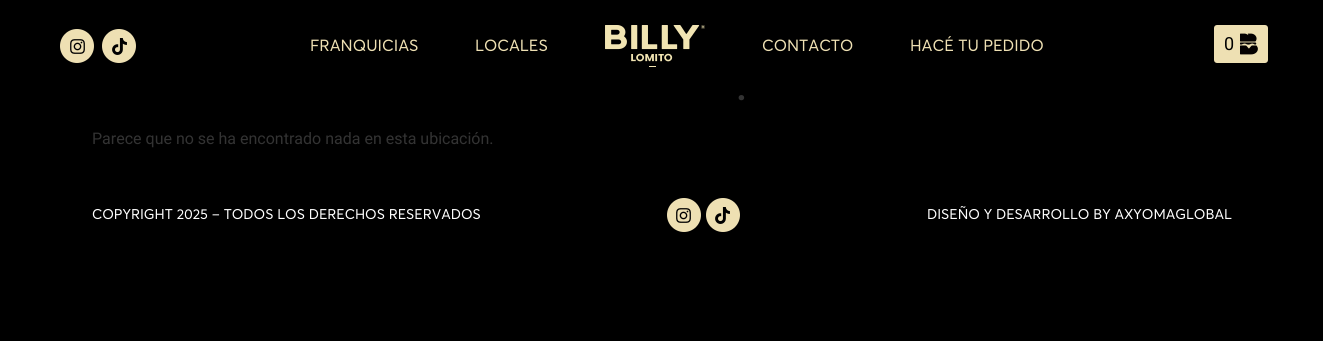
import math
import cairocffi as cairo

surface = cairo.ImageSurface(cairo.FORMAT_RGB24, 1323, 341)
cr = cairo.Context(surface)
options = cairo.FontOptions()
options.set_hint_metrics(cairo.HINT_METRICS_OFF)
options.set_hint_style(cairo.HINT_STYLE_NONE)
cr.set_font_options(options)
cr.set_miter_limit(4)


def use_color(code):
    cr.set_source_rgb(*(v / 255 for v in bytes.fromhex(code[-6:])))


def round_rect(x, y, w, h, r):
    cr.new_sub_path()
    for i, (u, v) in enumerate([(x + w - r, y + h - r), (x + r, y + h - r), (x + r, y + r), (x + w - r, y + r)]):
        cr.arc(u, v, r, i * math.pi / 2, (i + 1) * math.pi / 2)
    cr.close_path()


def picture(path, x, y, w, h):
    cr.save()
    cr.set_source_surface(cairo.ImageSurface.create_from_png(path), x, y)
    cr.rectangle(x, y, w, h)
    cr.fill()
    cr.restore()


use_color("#000000")
cr.paint()
use_color("#eee0b3")
cr.arc(77, 46, 17, 0, 2 * math.pi)
cr.fill()
picture("img1.png", 70, 39, 15, 15)
cr.arc(119, 46, 17, 0, 2 * math.pi)
cr.fill()
picture("img2.png", 112, 38, 15, 17)
cr.select_font_face("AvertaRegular")
cr.set_font_size(16)
cr.move_to(310, 51)
cr.show_text("FRANQUICIAS")
cr.move_to(475, 51)
cr.show_text("LOCALES")
picture("img3.png", 605, 25, 100, 42)
cr.move_to(762, 51)
cr.show_text("CONTACTO")
cr.move_to(910, 51)
cr.show_text("HACÉ TU PEDIDO")
round_rect(1214, 25, 54, 38, 3)
cr.fill()
cr.select_font_face("Roboto")
cr.set_font_size(18)
use_color("#000000")
cr.move_to(1224, 50)
cr.show_text("0")
picture("img4.png", 1240, 33, 18, 22)
cr.select_font_face("Roboto Medium")
cr.set_font_size(40)
use_color("#333333")
cr.move_to(736, 100)
cr.show_text(".")
cr.select_font_face("Roboto")
cr.set_font_size(16)
cr.move_to(92, 144)
cr.show_text("Parece que no se ha encontrado nada en esta ubicación.")
cr.select_font_face("AvertaRegular")
cr.set_font_size(14)
use_color("#ffffff")
cr.move_to(92, 219)
cr.show_text("COPYRIGHT 2025 – TODOS LOS DERECHOS RESERVADOS")
use_color("#eee0b3")
cr.new_path()
cr.arc(684, 215, 17, 0, 2 * math.pi)
cr.fill()
picture("img1.png", 676, 208, 15, 15)
cr.arc(723, 215, 17, 0, 2 * math.pi)
cr.fill()
picture("img2.png", 715, 207, 15, 17)
use_color("#ffffff")
cr.move_to(927, 219)
cr.show_text("DISEÑO Y DESARROLLO BY AXYOMAGLOBAL")
surface.write_to_png("result.png")
